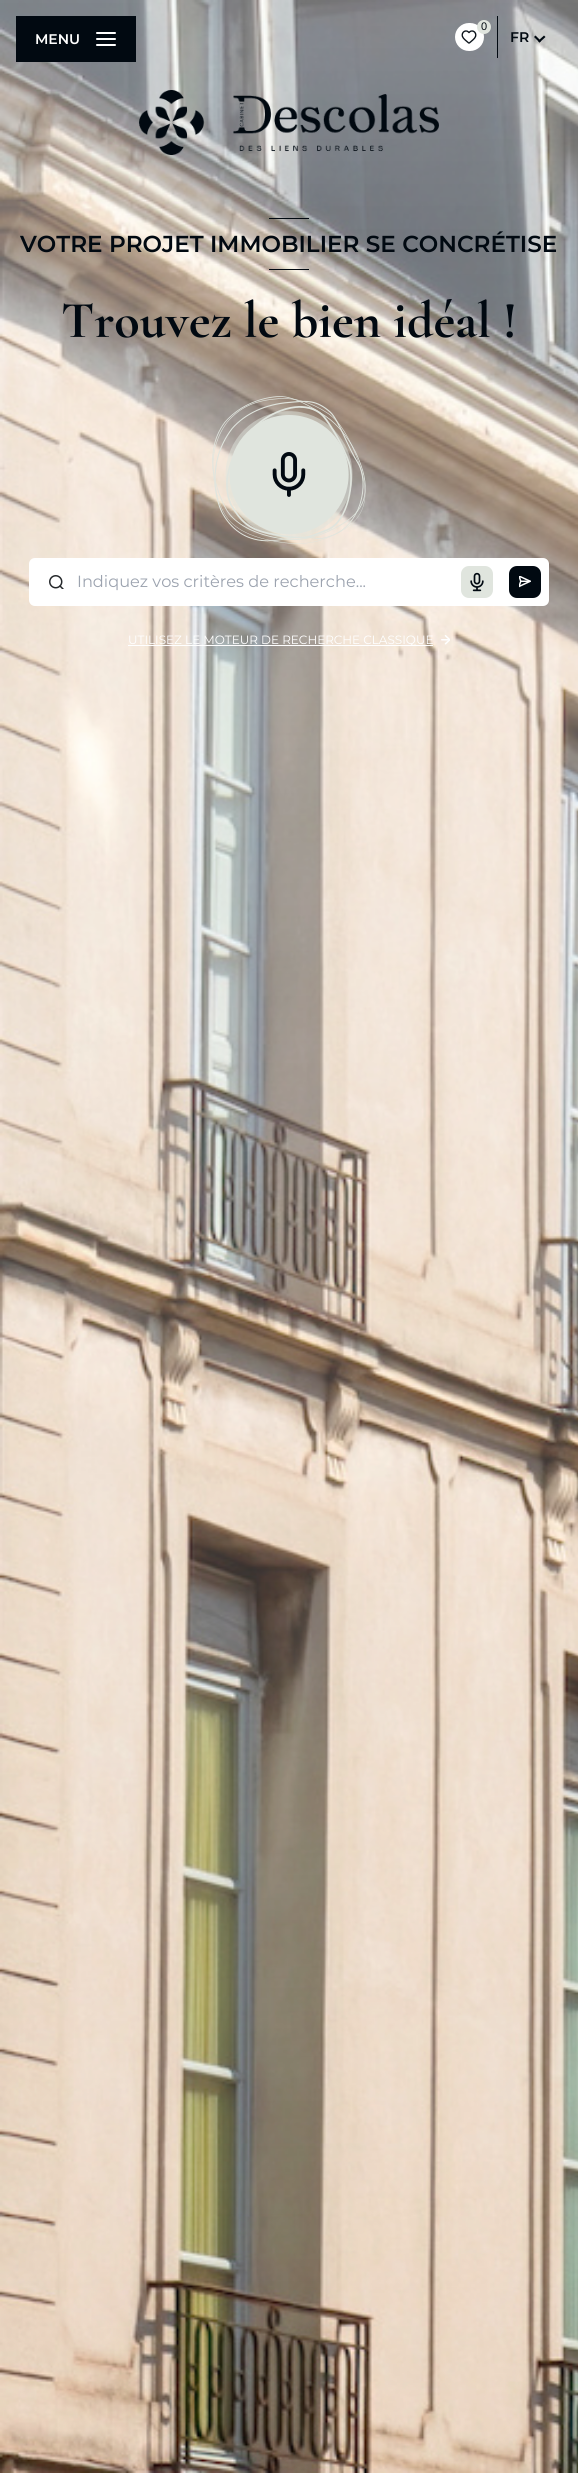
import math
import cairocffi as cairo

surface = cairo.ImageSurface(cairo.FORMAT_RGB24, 578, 2473)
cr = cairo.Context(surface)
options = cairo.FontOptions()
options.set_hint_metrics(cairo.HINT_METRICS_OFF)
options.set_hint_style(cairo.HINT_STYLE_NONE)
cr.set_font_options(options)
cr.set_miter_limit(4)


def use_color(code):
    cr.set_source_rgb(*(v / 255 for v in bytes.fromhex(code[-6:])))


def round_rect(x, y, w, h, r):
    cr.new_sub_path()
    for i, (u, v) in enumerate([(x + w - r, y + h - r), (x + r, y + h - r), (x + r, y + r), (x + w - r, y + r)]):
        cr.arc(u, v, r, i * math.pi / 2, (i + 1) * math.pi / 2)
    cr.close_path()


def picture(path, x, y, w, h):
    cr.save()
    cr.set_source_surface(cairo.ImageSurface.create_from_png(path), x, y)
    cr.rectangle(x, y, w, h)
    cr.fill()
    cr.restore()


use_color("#ffffff")
cr.paint()
picture("img1.png", 0, 0, 578, 2473)
use_color("#010911")
cr.rectangle(16, 16, 120, 46)
cr.fill()
cr.select_font_face("Montserrat SemiBold")
cr.set_font_size(14)
use_color("#ffffff")
cr.move_to(35, 44)
cr.show_text("MENU")
round_rect(96, 38, 20, 2, 1)
cr.fill()
round_rect(96, 32, 20, 2, 1)
cr.fill()
round_rect(96, 44, 20, 2, 1)
cr.fill()
picture("img2.png", 139, 90, 300, 65)
round_rect(455, 23, 29, 28, 14)
cr.fill()
use_color("#e0e5de")
cr.arc(484, 27, 7, 0, 2 * math.pi)
cr.fill()
cr.select_font_face("Liberation Sans")
cr.set_font_size(11)
use_color("#010911")
cr.move_to(481, 30)
cr.show_text("0")
picture("img3.png", 461, 30, 16, 14)
cr.rectangle(497, 16, 1, 42)
cr.fill()
cr.select_font_face("Montserrat SemiBold")
cr.set_font_size(14)
cr.move_to(510, 42)
cr.show_text("FR")
cr.new_path()
cr.move_to(544, 35.5)
cr.line_to(545.5, 37)
cr.line_to(539.5, 42.5)
cr.line_to(538, 41)
cr.close_path()
cr.fill()
cr.new_path()
cr.move_to(535.5, 35.5)
cr.line_to(541, 41)
cr.line_to(539.5, 42.5)
cr.line_to(534, 37)
cr.close_path()
cr.fill()
cr.rectangle(269, 218, 40, 1)
cr.fill()
cr.set_font_size(23.1)
cr.move_to(20, 252)
cr.show_text("VOTRE PROJET IMMOBILIER SE CONCRÉTISE")
cr.rectangle(269, 269, 40, 1)
cr.fill()
cr.select_font_face("Cormorant Garamond", cairo.FONT_SLANT_NORMAL, cairo.FONT_WEIGHT_BOLD)
cr.set_font_size(52)
cr.move_to(61, 337)
cr.show_text("Trouvez le bien idéal !")
picture("img4.png", 212, 396, 154, 148)
use_color("#ffffff")
round_rect(29, 558, 520, 48, 6)
cr.fill()
picture("img5.png", 49, 575, 15, 14)
cr.select_font_face("Montserrat Thin")
cr.set_font_size(16.2)
use_color("#9ca3af")
cr.move_to(77, 587)
cr.show_text("Indiquez vos critères de recherche...")
use_color("#e0e5de")
round_rect(461, 566, 32, 32, 8)
cr.fill()
picture("img6.png", 470, 572, 14, 20)
use_color("#010911")
round_rect(509, 566, 32, 32, 8)
cr.fill()
picture("img7.png", 519, 576, 12, 12)
use_color("#ffffff")
cr.rectangle(128, 645, 305, 1)
cr.fill()
cr.set_font_size(12)
cr.move_to(128, 644)
cr.show_text("UTILISEZ LE MOTEUR DE RECHERCHE CLASSIQUE")
picture("img8.png", 441, 635, 9, 10)
surface.write_to_png("result.png")
